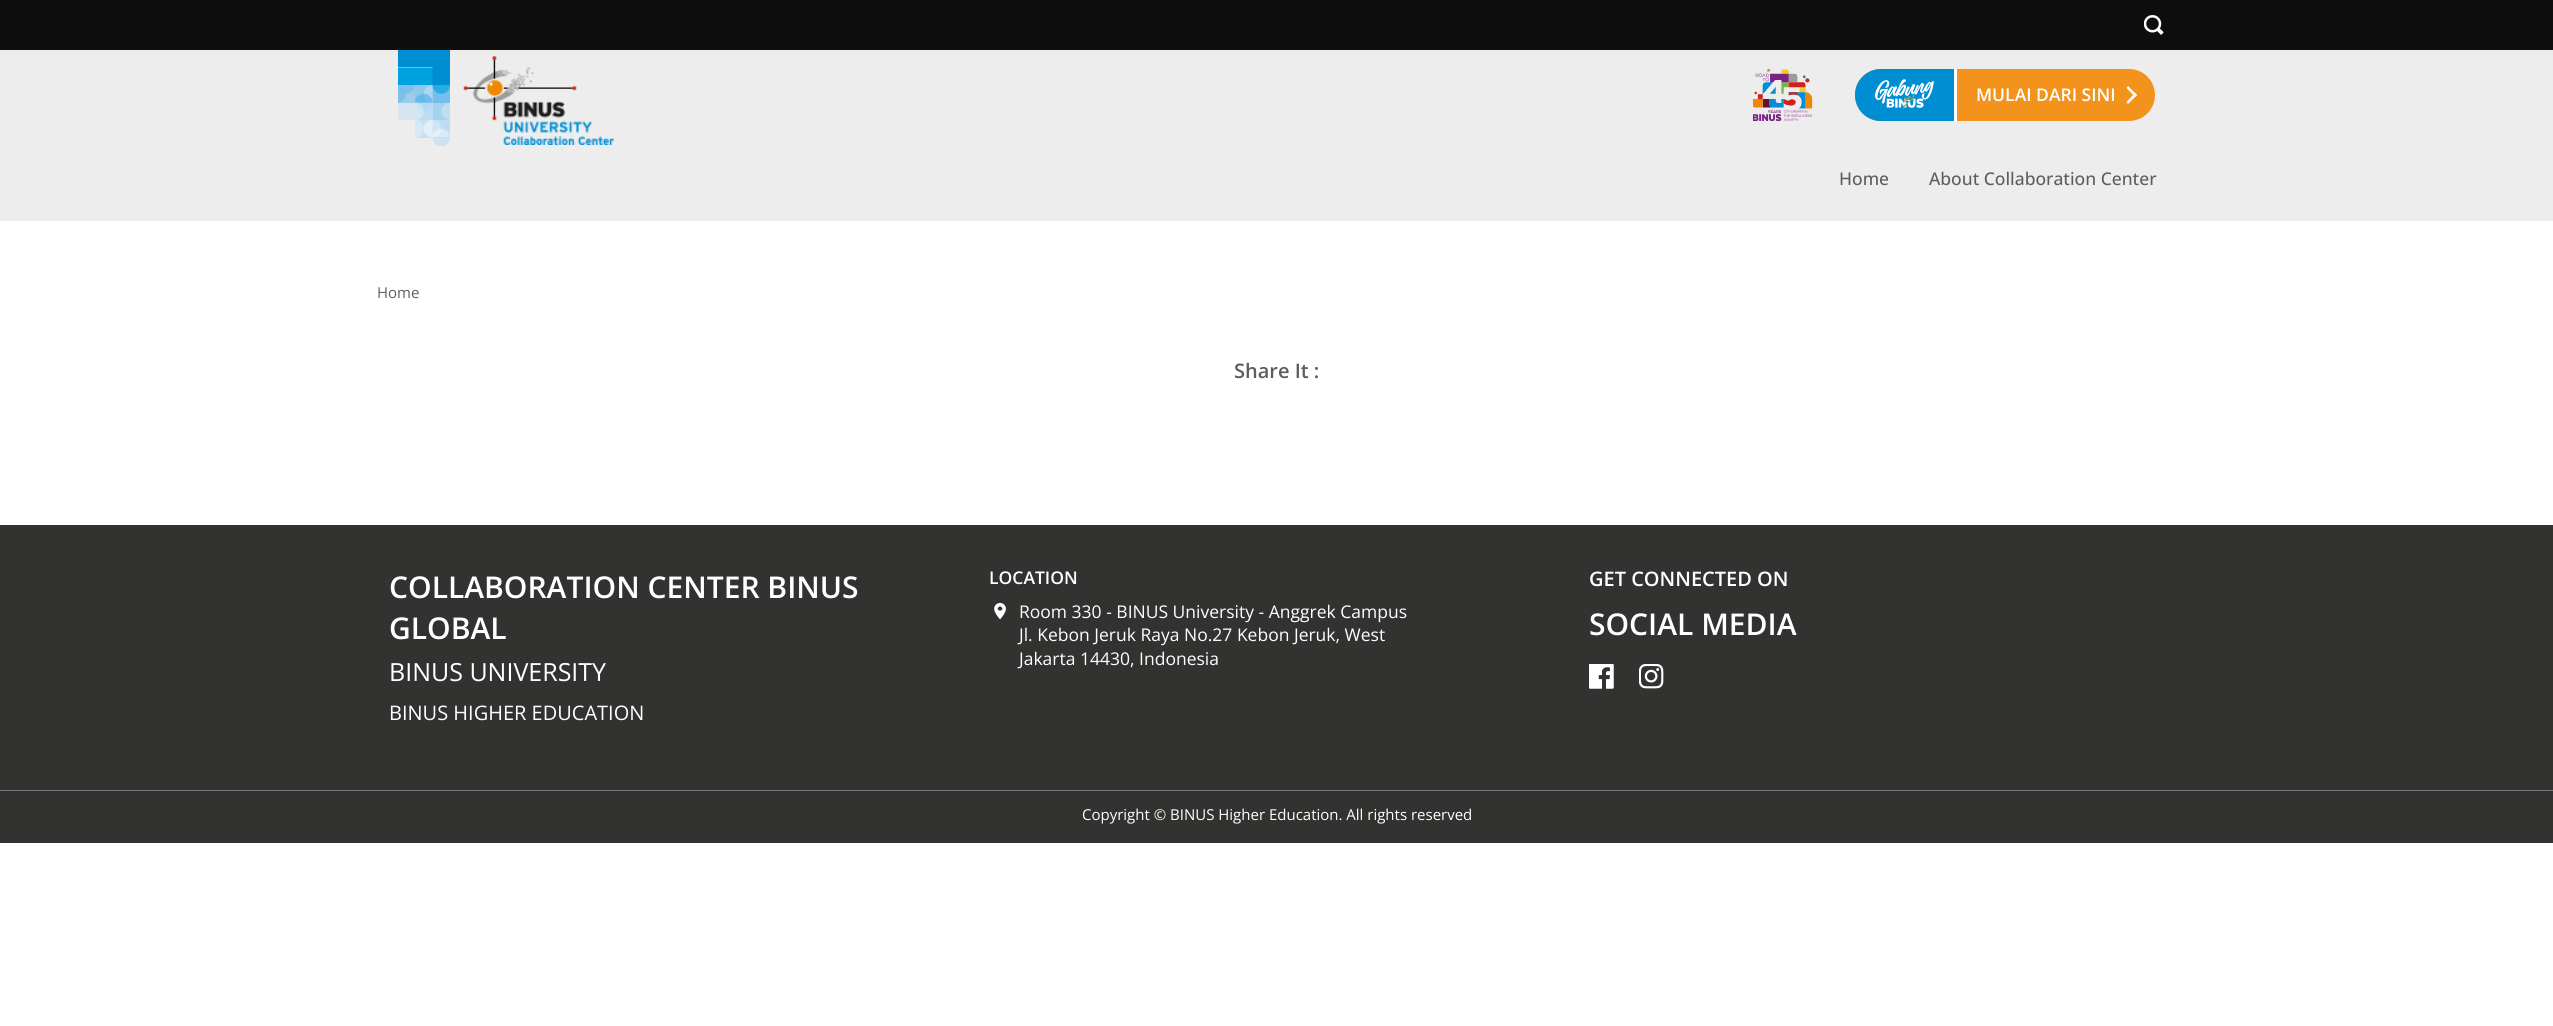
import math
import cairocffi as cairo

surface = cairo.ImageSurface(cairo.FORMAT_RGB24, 2553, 1026)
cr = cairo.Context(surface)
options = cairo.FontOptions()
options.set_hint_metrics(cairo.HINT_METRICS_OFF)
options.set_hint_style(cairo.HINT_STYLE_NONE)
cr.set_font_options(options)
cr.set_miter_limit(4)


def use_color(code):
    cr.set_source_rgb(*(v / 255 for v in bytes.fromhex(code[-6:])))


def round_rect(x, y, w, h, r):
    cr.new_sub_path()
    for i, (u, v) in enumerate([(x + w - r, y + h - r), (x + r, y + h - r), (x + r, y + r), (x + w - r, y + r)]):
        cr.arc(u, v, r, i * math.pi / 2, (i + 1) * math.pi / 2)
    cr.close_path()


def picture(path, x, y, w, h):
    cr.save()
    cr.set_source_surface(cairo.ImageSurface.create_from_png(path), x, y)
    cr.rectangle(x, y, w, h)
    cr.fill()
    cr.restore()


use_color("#ffffff")
cr.paint()
use_color("#0d0d0d")
cr.rectangle(0, 0, 2553, 50)
cr.fill()
picture("img1.png", 2144, 15, 20, 20)
use_color("#ededed")
cr.rectangle(0, 50, 2553, 171)
cr.fill()
picture("img2.png", 398, 50, 52, 96)
picture("img3.png", 463, 56, 151, 89)
picture("img4.png", 1753, 69, 60, 52)
use_color("#f3931b")
round_rect(1855, 69, 300, 52, 26)
cr.fill()
use_color("#008ed3")
cr.new_path()
cr.move_to(1881, 69)
cr.line_to(1956, 69)
cr.line_to(1956, 121)
cr.line_to(1881, 121)
cr.curve_to(1866.5, 121, 1855, 109.5, 1855, 95)
cr.curve_to(1855, 80.5, 1866.5, 69, 1881, 69)
cr.close_path()
cr.fill()
use_color("#ffffff")
cr.rectangle(1954, 69, 3, 52)
cr.fill()
picture("img5.png", 1875, 79, 59, 30)
cr.select_font_face("Open Sans SemiBold")
cr.set_font_size(17.5)
cr.move_to(1976, 101)
cr.show_text("MULAI DARI SINI")
cr.new_path()
cr.move_to(2126.5, 88)
cr.line_to(2128, 86)
cr.line_to(2137, 95)
cr.line_to(2135, 97)
cr.close_path()
cr.fill()
cr.new_path()
cr.move_to(2126.5, 102)
cr.line_to(2135, 93)
cr.line_to(2137, 95)
cr.line_to(2128, 104)
cr.close_path()
cr.fill()
cr.select_font_face("Open Sans Medium")
use_color("#5e5e5e")
cr.move_to(1839, 185)
cr.show_text("Home")
cr.move_to(1929, 185)
cr.show_text("About Collaboration Center")
cr.select_font_face("Open Sans")
cr.set_font_size(15)
cr.move_to(377, 298)
cr.show_text("Home")
cr.select_font_face("Open Sans SemiBold")
cr.set_font_size(20)
cr.move_to(1234, 378)
cr.show_text("Share It :")
use_color("#323231")
cr.rectangle(0, 525, 2553, 318)
cr.fill()
cr.set_font_size(30)
use_color("#ffffff")
cr.move_to(389, 598)
cr.show_text("COLLABORATION CENTER BINUS")
cr.move_to(389, 639)
cr.show_text("GLOBAL")
cr.select_font_face("Open Sans")
cr.set_font_size(25)
cr.move_to(389, 681)
cr.show_text("BINUS UNIVERSITY")
cr.set_font_size(20)
cr.move_to(389, 720)
cr.show_text("BINUS HIGHER EDUCATION")
cr.select_font_face("Open Sans SemiBold")
cr.set_font_size(17.5)
cr.move_to(989, 584)
cr.show_text("LOCATION")
picture("img6.png", 994, 602, 12, 18)
cr.select_font_face("Open Sans")
cr.move_to(1019, 618)
cr.show_text("Room 330 - BINUS University - Anggrek Campus")
cr.move_to(1019, 641)
cr.show_text("Jl. Kebon Jeruk Raya No.27 Kebon Jeruk, West")
cr.move_to(1019, 665)
cr.show_text("Jakarta 14430, Indonesia")
cr.select_font_face("Open Sans SemiBold")
cr.set_font_size(20)
cr.move_to(1589, 586)
cr.show_text("GET CONNECTED ON")
cr.set_font_size(30)
cr.move_to(1589, 635)
cr.show_text("SOCIAL MEDIA")
picture("img7.png", 1589, 664, 25, 25)
picture("img8.png", 1639, 664, 25, 25)
use_color("#797979")
cr.rectangle(0, 790, 2553, 1)
cr.fill()
cr.select_font_face("Open Sans")
cr.set_font_size(15)
use_color("#ffffff")
cr.move_to(1082, 820)
cr.show_text("Copyright © BINUS Higher Education. All rights reserved")
surface.write_to_png("result.png")
